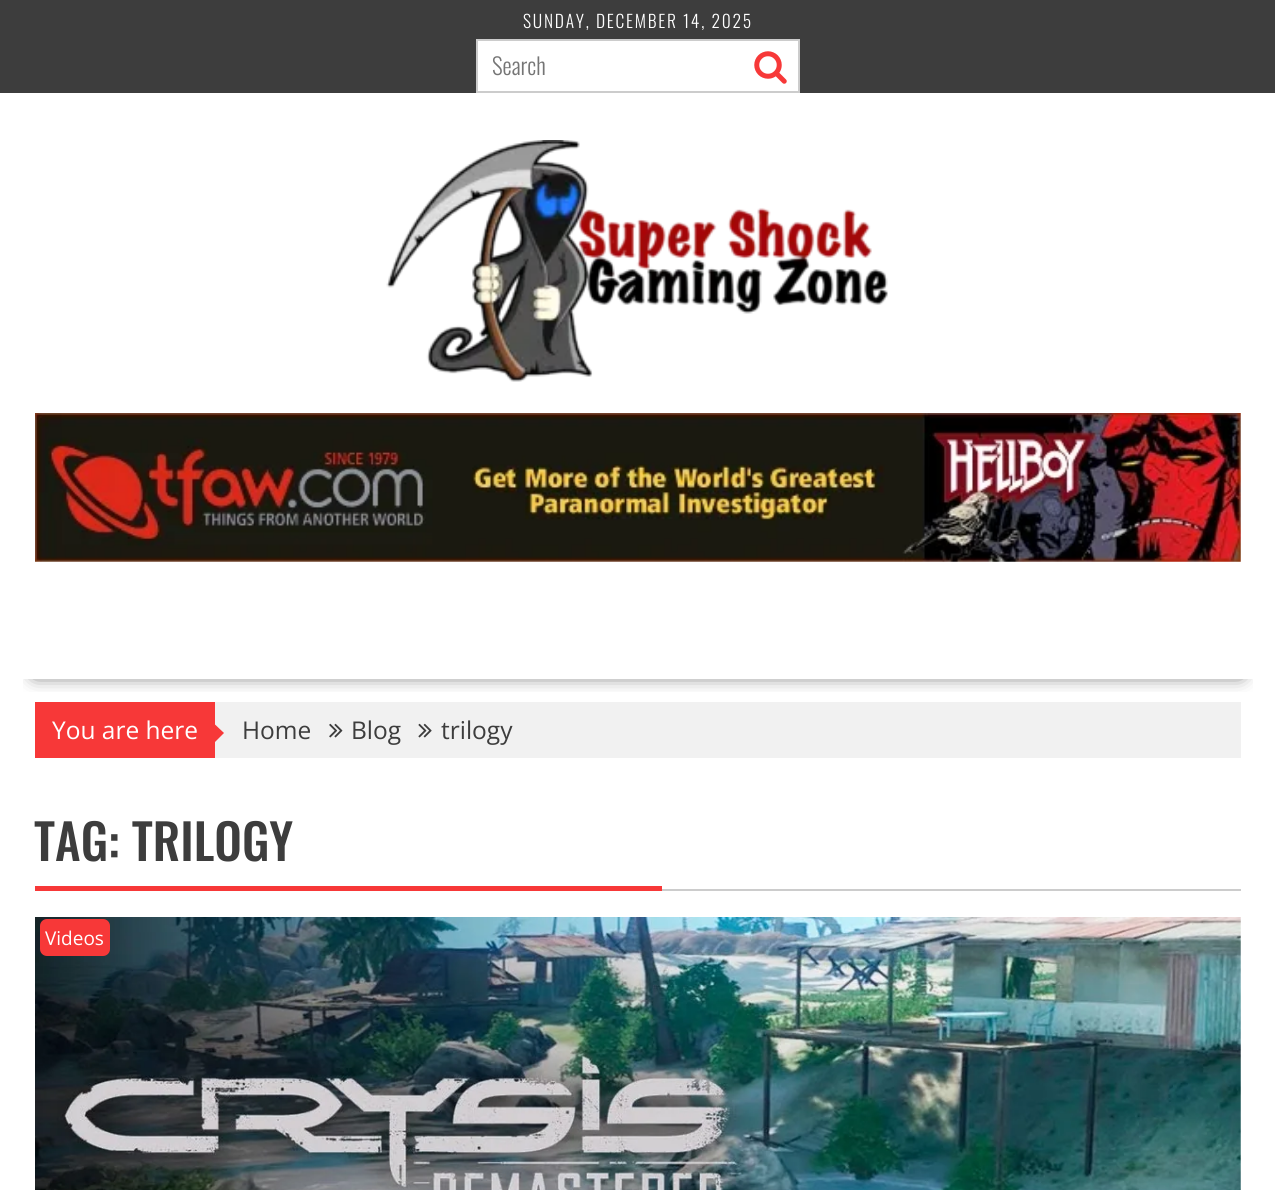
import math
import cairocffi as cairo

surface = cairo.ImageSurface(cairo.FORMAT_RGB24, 1275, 1190)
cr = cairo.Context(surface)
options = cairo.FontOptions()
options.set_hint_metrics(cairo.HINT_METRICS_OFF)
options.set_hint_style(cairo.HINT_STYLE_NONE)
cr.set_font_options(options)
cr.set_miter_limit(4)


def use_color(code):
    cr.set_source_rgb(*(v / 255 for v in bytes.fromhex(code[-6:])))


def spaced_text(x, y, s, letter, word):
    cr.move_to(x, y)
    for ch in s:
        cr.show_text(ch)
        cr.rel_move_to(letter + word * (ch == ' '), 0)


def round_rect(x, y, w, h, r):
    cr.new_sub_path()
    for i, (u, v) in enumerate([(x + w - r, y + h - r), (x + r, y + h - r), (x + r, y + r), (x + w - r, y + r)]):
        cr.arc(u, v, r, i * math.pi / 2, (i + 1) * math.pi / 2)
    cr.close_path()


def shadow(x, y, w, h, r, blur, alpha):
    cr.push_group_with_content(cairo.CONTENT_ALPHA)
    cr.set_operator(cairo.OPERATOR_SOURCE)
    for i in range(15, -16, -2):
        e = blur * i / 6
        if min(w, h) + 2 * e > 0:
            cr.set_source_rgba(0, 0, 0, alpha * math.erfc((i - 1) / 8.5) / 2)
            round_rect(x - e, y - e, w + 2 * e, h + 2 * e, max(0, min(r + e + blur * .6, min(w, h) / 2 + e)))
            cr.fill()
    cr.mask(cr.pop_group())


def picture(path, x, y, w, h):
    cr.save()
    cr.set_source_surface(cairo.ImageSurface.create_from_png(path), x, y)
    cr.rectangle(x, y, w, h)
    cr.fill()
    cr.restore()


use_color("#ffffff")
cr.paint()
use_color("#3d3d3d")
cr.rectangle(0, 0, 1275, 93)
cr.fill()
cr.select_font_face("Oswald Light")
cr.set_font_size(17.5)
use_color("#ffffff")
spaced_text(523, 28, "SUNDAY, DECEMBER 14, 2025", 1.75, 0)
cr.rectangle(477, 40, 322, 52)
cr.fill_preserve()
use_color("#cccccc")
cr.stroke()
cr.set_font_size(23)
use_color("#757575")
cr.move_to(492, 75)
cr.show_text("Search")
picture("img1.png", 754, 51, 33, 33)
picture("img2.png", 386, 140, 502, 242)
picture("img3.png", 35, 413, 1206, 149)
use_color("#f1f1f1")
cr.rectangle(215, 702, 1026, 56)
cr.fill()
cr.save()
cr.rectangle(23, 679, 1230, 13)
cr.clip()
use_color("#000000")
shadow(35, 653, 1206, 21, 0, 9.5, 0.75)
cr.restore()
use_color("#f73838")
cr.rectangle(35, 702, 180, 56)
cr.fill()
cr.select_font_face("Open Sans")
cr.set_font_size(24.5)
use_color("#ffffff")
cr.move_to(52, 739)
cr.show_text("You are here")
use_color("#f73838")
cr.new_path()
cr.move_to(215, 742)
cr.line_to(215, 724.5)
cr.line_to(224, 733)
cr.close_path()
cr.fill()
use_color("#3d3d3d")
cr.move_to(242, 739)
cr.show_text("Home")
picture("img4.png", 329, 723, 14, 15)
cr.move_to(351, 739)
cr.show_text("Blog")
picture("img5.png", 418, 723, 14, 15)
cr.move_to(441, 739)
cr.show_text("trilogy")
use_color("#cccccc")
cr.rectangle(662, 889, 579, 2)
cr.fill()
cr.select_font_face("Oswald Medium")
cr.set_font_size(49)
use_color("#3d3d3d")
cr.move_to(34, 861)
cr.show_text("TAG: TRILOGY")
use_color("#f73838")
cr.rectangle(35, 886, 627, 5)
cr.fill()
picture("img6.png", 35, 917, 1206, 273)
round_rect(40, 919, 70, 37, 7)
cr.fill()
cr.select_font_face("Open Sans")
cr.set_font_size(19)
use_color("#ffffff")
cr.move_to(45, 945)
cr.show_text("Videos")
surface.write_to_png("result.png")
